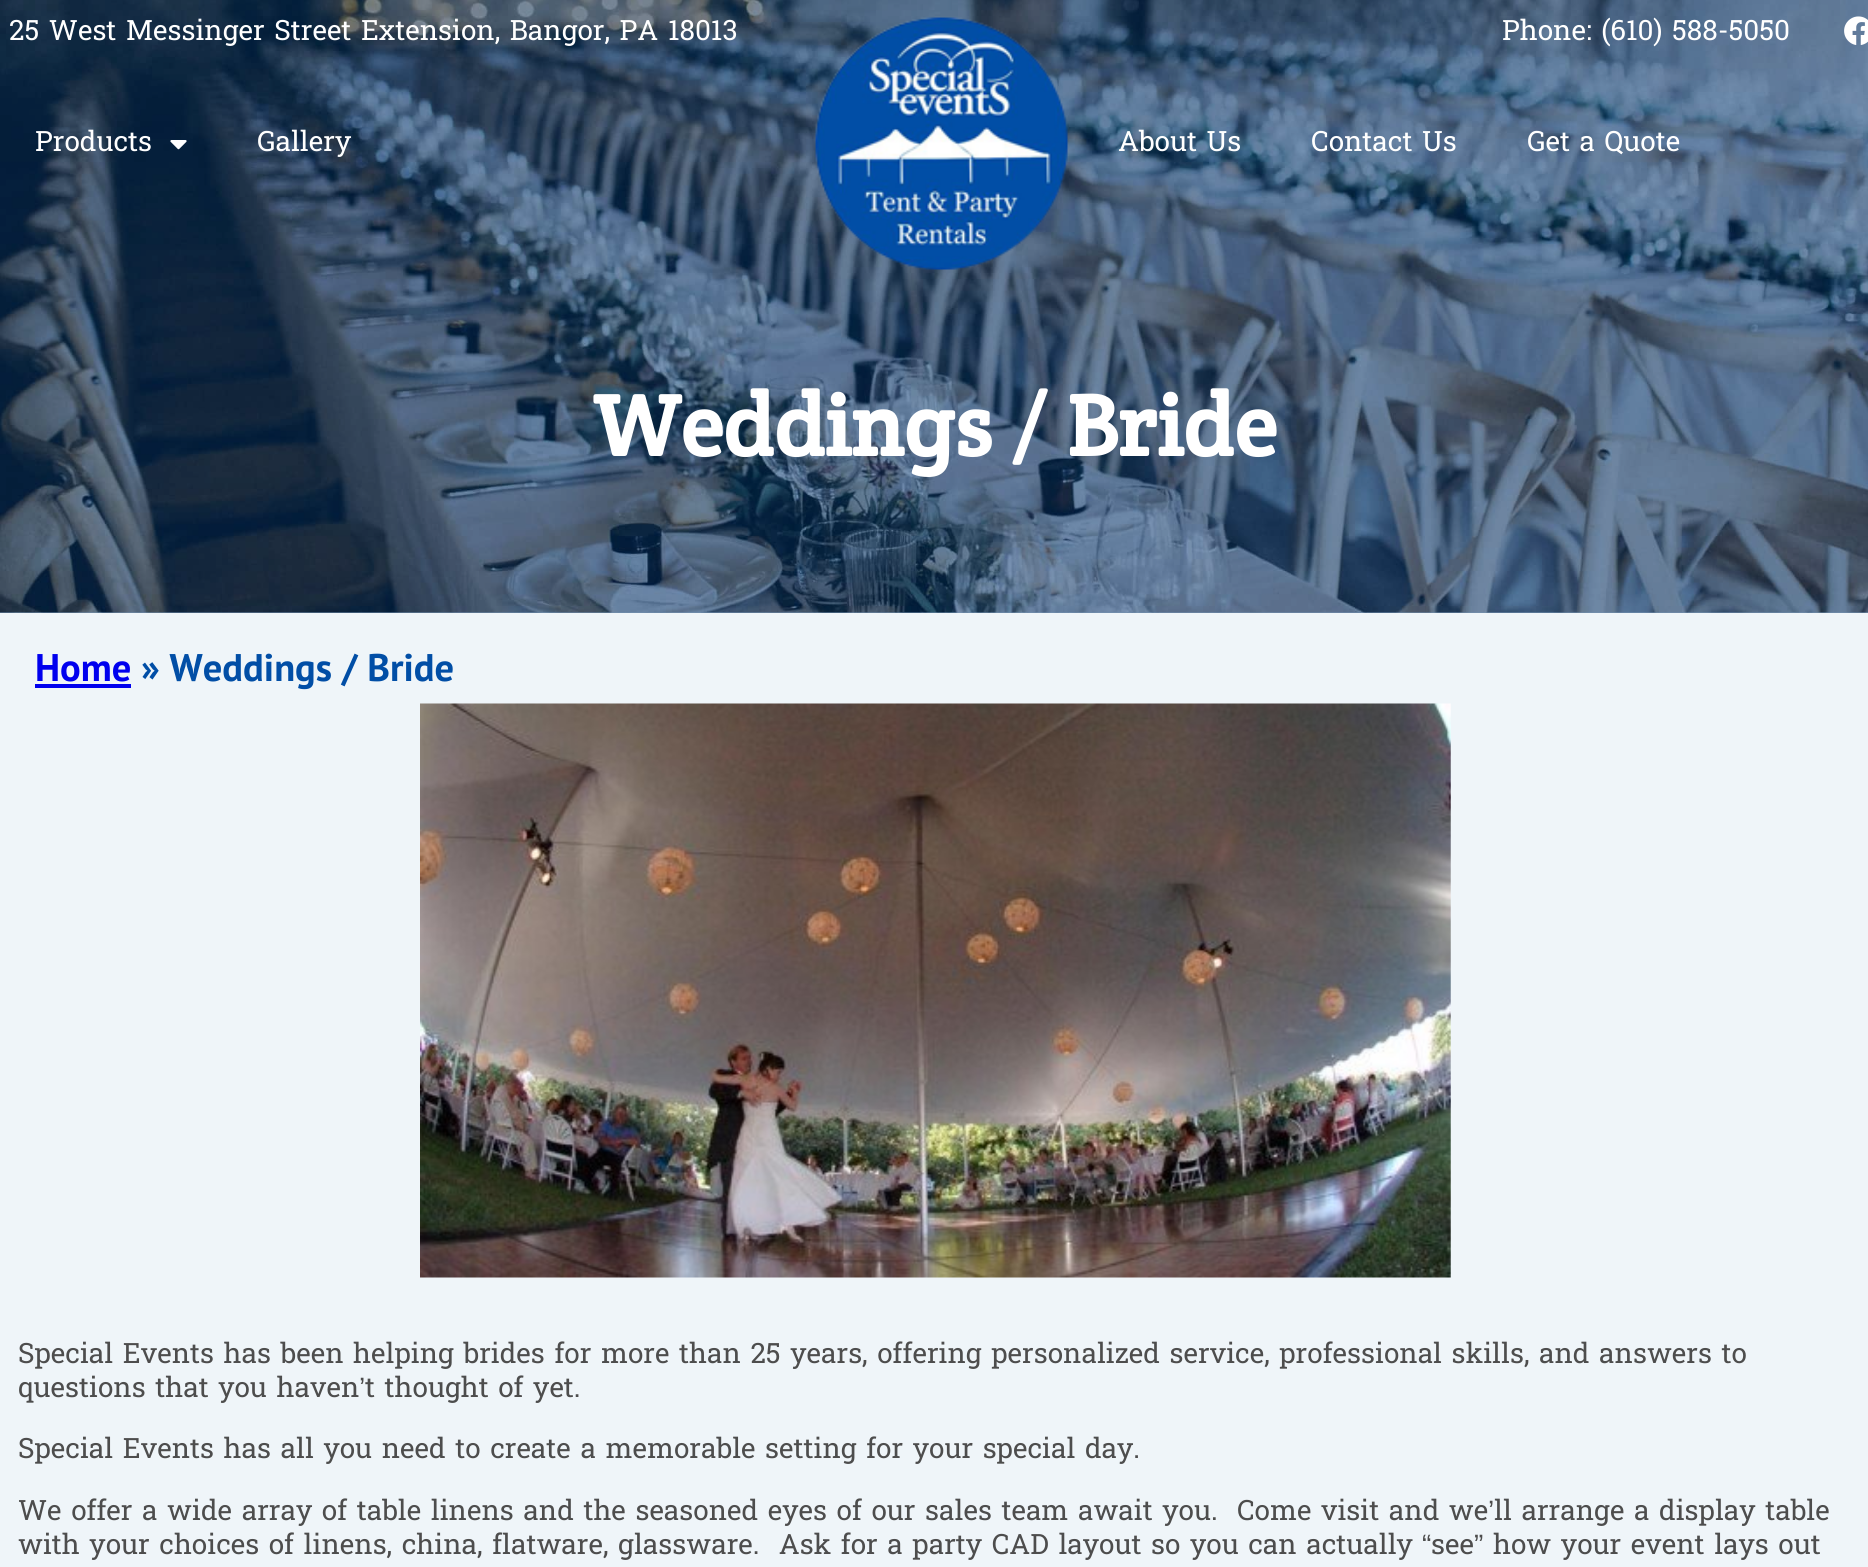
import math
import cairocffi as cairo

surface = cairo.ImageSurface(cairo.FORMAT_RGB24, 1868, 1567)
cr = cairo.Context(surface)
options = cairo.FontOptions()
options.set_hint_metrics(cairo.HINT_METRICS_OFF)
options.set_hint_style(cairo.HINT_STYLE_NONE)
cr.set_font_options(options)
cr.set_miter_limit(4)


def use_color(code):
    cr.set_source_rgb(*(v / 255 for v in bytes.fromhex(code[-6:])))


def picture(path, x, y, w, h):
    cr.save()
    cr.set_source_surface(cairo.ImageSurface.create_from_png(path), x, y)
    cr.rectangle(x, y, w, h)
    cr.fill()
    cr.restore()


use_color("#eff5f9")
cr.paint()
use_color("#7592b1")
cr.rectangle(0, 612, 1868, 1)
cr.fill()
picture("img4.png", 0, 0, 1868, 613)
cr.select_font_face("Hanuman")
cr.set_font_size(28)
use_color("#ffffff")
cr.move_to(9, 40)
cr.show_text("25 West Messinger Street Extension, Bangor, PA 18013")
cr.move_to(1502, 40)
cr.show_text("Phone: (610) 588-5050")
picture("img1.png", 1844, 16, 24, 29)
cr.move_to(35, 151)
cr.show_text("Products")
picture("img2.png", 170, 140, 17, 10)
cr.move_to(257, 151)
cr.show_text("Gallery")
picture("img3.png", 815, 17, 253, 253)
cr.move_to(1118, 151)
cr.show_text("About Us")
cr.move_to(1311, 151)
cr.show_text("Contact Us")
cr.move_to(1527, 151)
cr.show_text("Get a Quote")
cr.select_font_face("Crete Round", cairo.FONT_SLANT_NORMAL, cairo.FONT_WEIGHT_BOLD)
cr.set_font_size(87.5)
cr.move_to(593, 456)
cr.show_text("Weddings / Bride")
cr.select_font_face("PT Sans", cairo.FONT_SLANT_NORMAL, cairo.FONT_WEIGHT_BOLD)
cr.set_font_size(38.5)
use_color("#0000ee")
cr.move_to(35, 681)
cr.show_text("Home")
cr.rectangle(35, 684, 96, 4)
cr.fill()
use_color("#014ea6")
cr.move_to(141, 681)
cr.show_text("» Weddings / Bride")
picture("img5.png", 420, 703, 1031, 575)
cr.select_font_face("Hanuman")
cr.set_font_size(28)
use_color("#4d4d4d")
cr.move_to(18, 1363)
cr.show_text("Special Events has been helping brides for more than 25 years, offering personalized service, professional skills, and answers to")
cr.move_to(18, 1397)
cr.show_text("questions that you haven")
cr.select_font_face("Liberation Sans")
cr.move_to(359, 1397)
cr.show_text("’")
cr.select_font_face("Hanuman")
cr.move_to(365, 1397)
cr.show_text("t thought of yet.")
cr.move_to(18, 1458)
cr.show_text("Special Events has all you need to create a memorable setting for your special day.")
cr.move_to(18, 1520)
cr.show_text("We offer a wide array of table linens and the seasoned eyes of our sales team await you.  Come visit and we")
cr.select_font_face("Liberation Sans")
cr.move_to(1488, 1520)
cr.show_text("’")
cr.select_font_face("Hanuman")
cr.move_to(1494, 1520)
cr.show_text("ll arrange a display table")
cr.move_to(18, 1554)
cr.show_text("with your choices of linens, china, flatware, glassware.  Ask for a party CAD layout so you can actually")
cr.select_font_face("Liberation Sans")
cr.move_to(1422, 1554)
cr.show_text("“")
cr.select_font_face("Hanuman")
cr.move_to(1431, 1554)
cr.show_text("see")
cr.select_font_face("Liberation Sans")
cr.move_to(1474, 1554)
cr.show_text("”")
cr.select_font_face("Hanuman")
cr.move_to(1493, 1554)
cr.show_text("how your event lays out")
surface.write_to_png("result.png")
